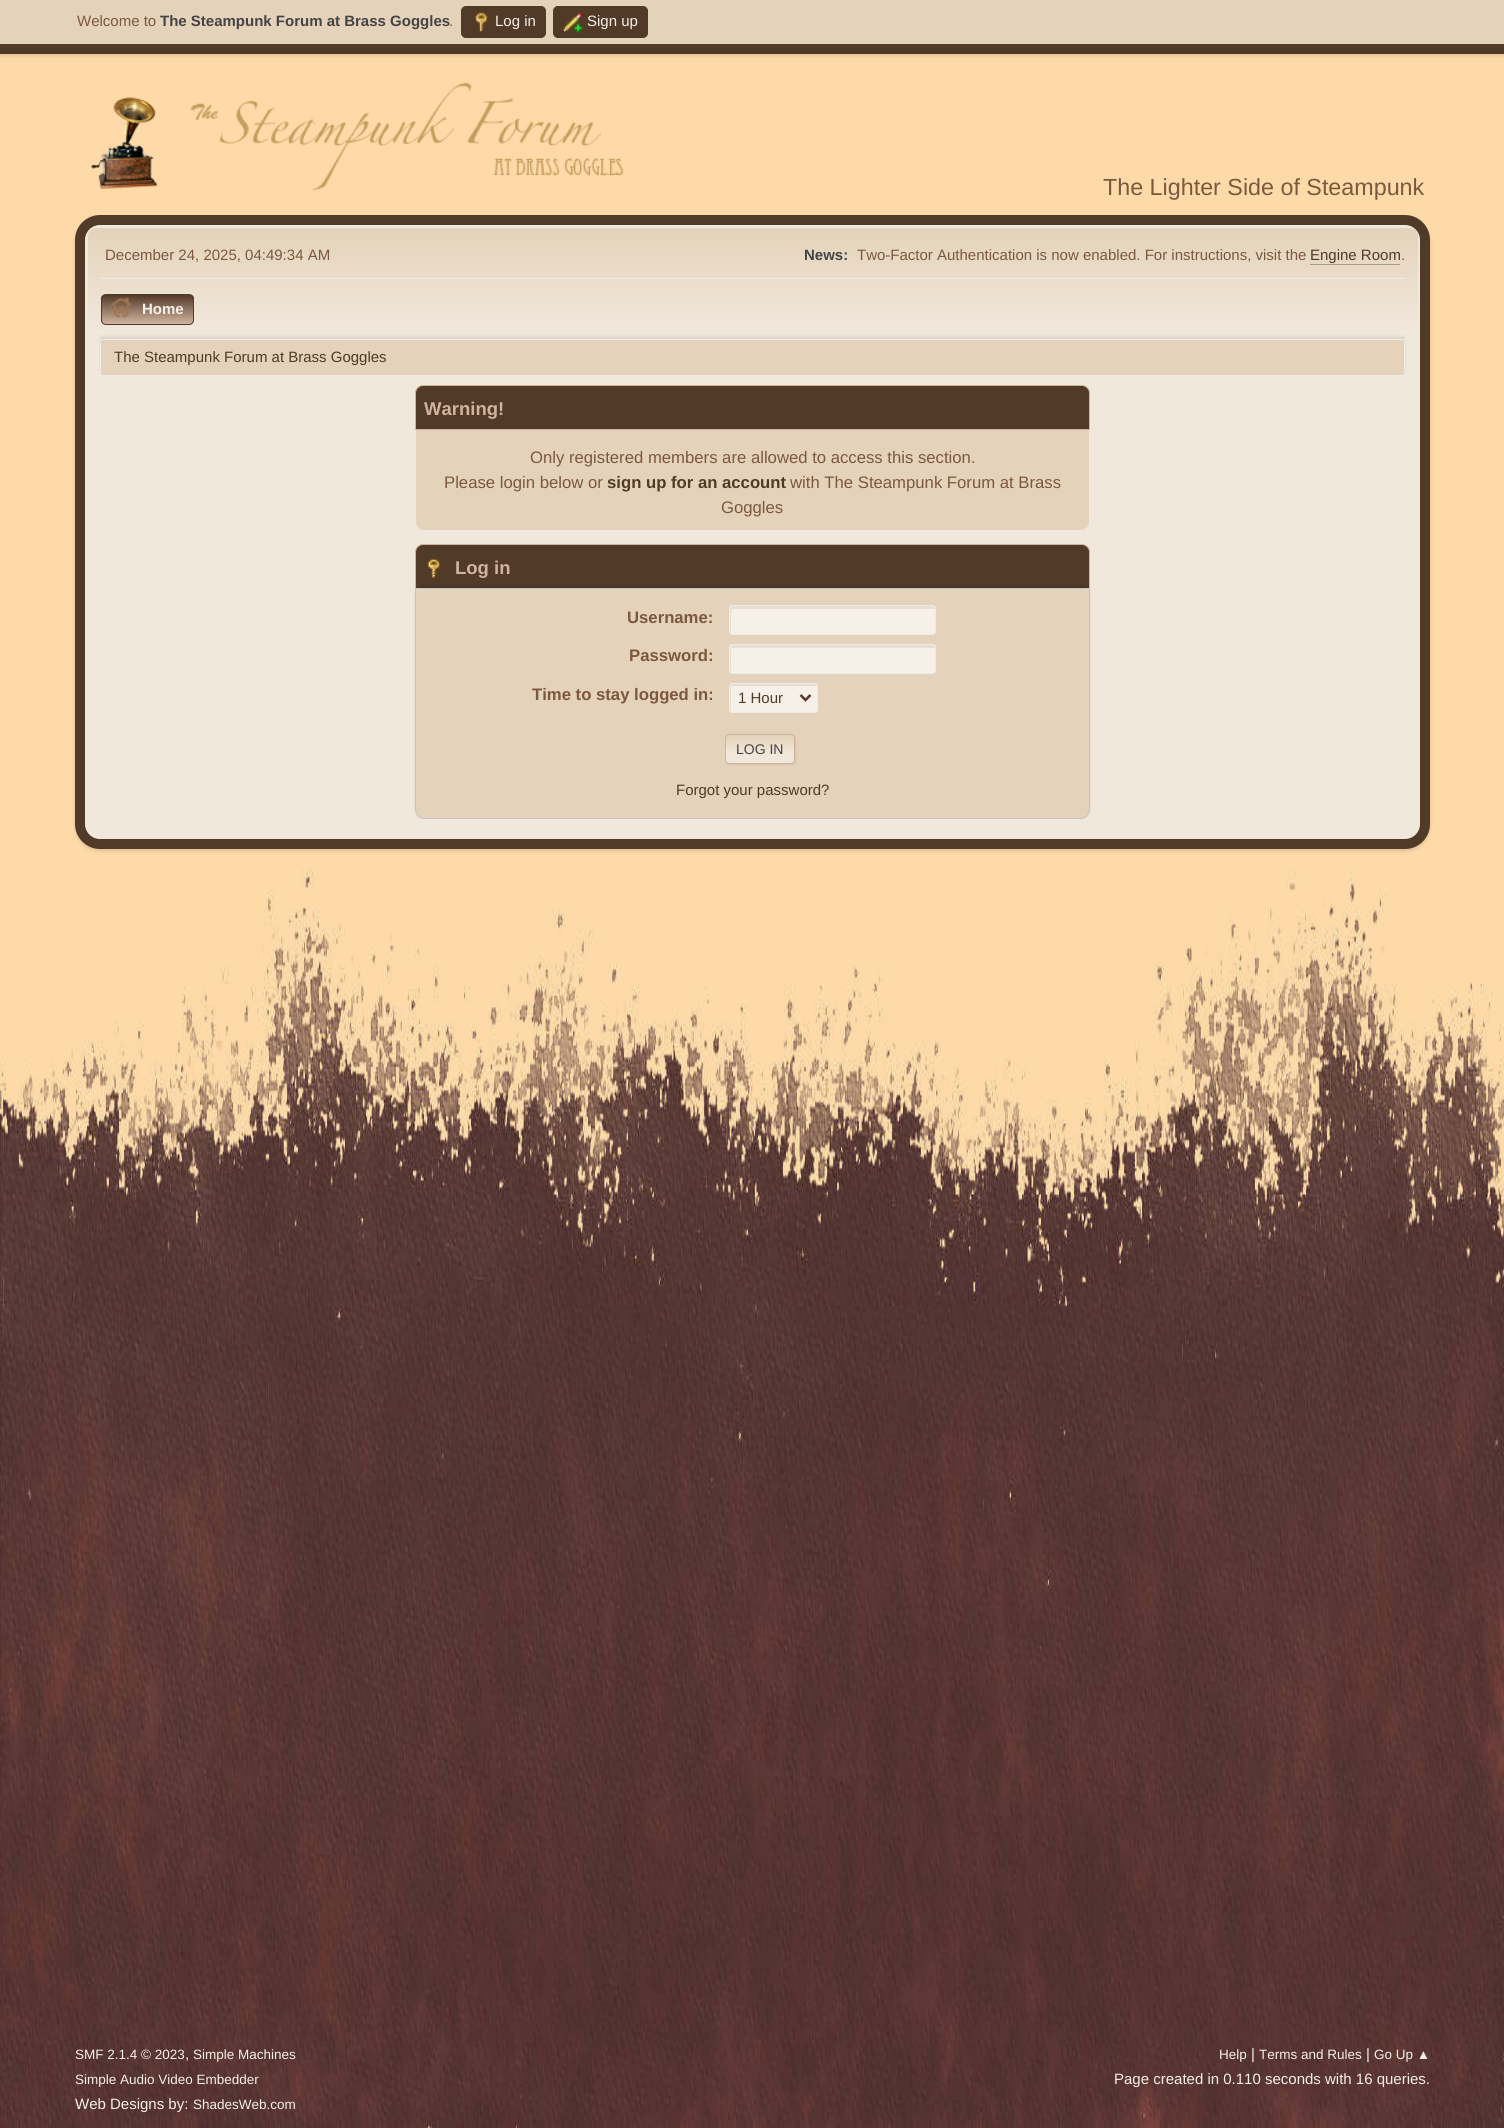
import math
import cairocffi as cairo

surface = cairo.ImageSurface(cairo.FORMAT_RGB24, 1504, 2128)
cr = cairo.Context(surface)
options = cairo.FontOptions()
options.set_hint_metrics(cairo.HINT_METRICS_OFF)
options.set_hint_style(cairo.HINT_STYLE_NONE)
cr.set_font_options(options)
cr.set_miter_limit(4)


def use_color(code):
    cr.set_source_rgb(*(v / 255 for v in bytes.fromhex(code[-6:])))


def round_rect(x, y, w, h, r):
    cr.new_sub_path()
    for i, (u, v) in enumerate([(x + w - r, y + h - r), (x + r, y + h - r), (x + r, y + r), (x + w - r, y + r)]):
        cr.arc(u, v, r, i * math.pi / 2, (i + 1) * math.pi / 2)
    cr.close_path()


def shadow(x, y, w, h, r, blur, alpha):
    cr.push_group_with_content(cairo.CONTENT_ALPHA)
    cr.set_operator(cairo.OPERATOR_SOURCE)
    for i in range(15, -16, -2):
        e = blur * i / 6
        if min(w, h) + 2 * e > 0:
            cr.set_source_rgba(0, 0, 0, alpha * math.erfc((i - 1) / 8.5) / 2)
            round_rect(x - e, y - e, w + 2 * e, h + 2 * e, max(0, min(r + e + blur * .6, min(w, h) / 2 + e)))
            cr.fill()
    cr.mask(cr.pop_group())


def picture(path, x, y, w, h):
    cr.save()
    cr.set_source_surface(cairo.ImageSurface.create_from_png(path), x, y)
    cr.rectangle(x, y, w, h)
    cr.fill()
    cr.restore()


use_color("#ffffff")
cr.paint()
picture("img1.png", 0, 54, 1504, 2074)
use_color("#000000")
shadow(0, 1, 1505, 54, 0, 2.5, 0.16)
use_color("#e4d2ba")
cr.rectangle(0, 0, 1504, 44)
cr.fill()
use_color("#523a28")
cr.rectangle(0, 44, 1504, 10)
cr.fill()
cr.select_font_face("Liberation Sans")
cr.set_font_size(15)
use_color("#7b583e")
cr.move_to(77, 26)
cr.show_text("Welcome to")
cr.select_font_face("Liberation Sans", cairo.FONT_SLANT_NORMAL, cairo.FONT_WEIGHT_BOLD)
use_color("#444444")
cr.move_to(160, 26)
cr.show_text("The Steampunk Forum at Brass Goggles")
cr.select_font_face("Liberation Sans")
use_color("#7b583e")
cr.move_to(449, 26)
cr.show_text(".")
use_color("#523a28")
round_rect(461.5, 6.5, 84, 31, 4.5)
cr.fill_preserve()
cr.set_line_width(1)
cr.stroke()
picture("img2.png", 475, 12, 13, 21)
use_color("#f6f0e8")
cr.move_to(495, 26)
cr.show_text("Log in")
use_color("#523a28")
round_rect(553.5, 6.5, 94, 31, 4.5)
cr.fill_preserve()
cr.stroke()
picture("img3.png", 562, 12, 21, 21)
use_color("#f6f0e8")
cr.move_to(587, 26)
cr.show_text("Sign up")
picture("img4.png", 91, 82, 533, 108)
cr.set_font_size(23.3)
use_color("#7b583e")
cr.move_to(1103, 195)
cr.show_text("The Lighter Side of Steampunk")
use_color("#000000")
shadow(75, 218, 1355, 633, 25, 2, 0.14)
use_color("#f1e8dc")
round_rect(80, 220, 1345, 624, 20)
cr.fill_preserve()
use_color("#523a28")
cr.set_line_width(10)
cr.stroke()
gradient = cairo.LinearGradient(753, 227, 753, 379)
gradient.add_color_stop_rgba(0, 0.894, 0.824, 0.729, 1)
gradient.add_color_stop_rgba(0.7, 0.945, 0.91, 0.863, 1)
cr.set_source(gradient)
cr.new_path()
cr.move_to(96, 228)
cr.line_to(1410, 228)
cr.curve_to(1414.5, 228, 1418, 231.5, 1418, 236)
cr.line_to(1418, 379)
cr.line_to(88, 379)
cr.line_to(88, 236)
cr.curve_to(88, 231.5, 91.5, 228, 96, 228)
cr.close_path()
cr.fill()
use_color("#edebe9")
cr.rectangle(100, 278, 1305, 1)
cr.fill()
cr.set_font_size(15)
use_color("#7b583e")
cr.move_to(105, 260)
cr.show_text("December 24, 2025, 04:49:34 AM")
cr.select_font_face("Liberation Sans", cairo.FONT_SLANT_NORMAL, cairo.FONT_WEIGHT_BOLD)
use_color("#444444")
cr.move_to(804, 260)
cr.show_text("News:")
cr.select_font_face("Liberation Sans")
use_color("#7b583e")
cr.move_to(857, 260)
cr.show_text("Two-Factor Authentication is now enabled. For instructions, visit the")
use_color("#523a28")
cr.move_to(1310, 260)
cr.show_text("Engine Room")
use_color("#b09985")
cr.rectangle(1310, 264, 90, 1)
cr.fill()
use_color("#7b583e")
cr.move_to(1401, 260)
cr.show_text(".")
cr.save()
round_rect(101, 294, 93, 31, 5)
cr.clip()
gradient = cairo.LinearGradient(148, 295, 148, 324)
gradient.add_color_stop_rgba(0, 0.322, 0.227, 0.157, 1)
gradient.add_color_stop_rgba(1, 0.816, 0.706, 0.624, 1)
cr.set_source(gradient)
cr.rectangle(101, 295, 93, 29)
cr.fill()
cr.restore()
round_rect(101.5, 294.5, 92, 30, 4.5)
use_color("#523a28")
cr.set_line_width(1)
cr.stroke()
picture("img5.png", 111, 297, 21, 21)
cr.select_font_face("Liberation Sans", cairo.FONT_SLANT_NORMAL, cairo.FONT_WEIGHT_BOLD)
use_color("#f6f0e8")
cr.move_to(142, 314)
cr.show_text("Home")
use_color("#000000")
shadow(100, 336, 1305, 38, 2.5, 1, 0.08)
use_color("#e4d2ba")
round_rect(100.5, 339.5, 1304, 36, 2)
cr.fill_preserve()
use_color("#edebe9")
cr.stroke()
cr.select_font_face("Liberation Sans")
use_color("#523a28")
cr.move_to(114, 362)
cr.show_text("The Steampunk Forum at Brass Goggles")
cr.new_path()
cr.move_to(423, 385.5)
cr.line_to(1082, 385.5)
cr.curve_to(1086, 385.5, 1089.5, 389, 1089.5, 393)
cr.line_to(1089.5, 429.5)
cr.line_to(415.5, 429.5)
cr.line_to(415.5, 393)
cr.curve_to(415.5, 389, 419, 385.5, 423, 385.5)
cr.close_path()
cr.fill_preserve()
use_color("#d0b49f")
cr.stroke()
cr.select_font_face("Liberation Sans", cairo.FONT_SLANT_NORMAL, cairo.FONT_WEIGHT_BOLD)
cr.set_font_size(18.5)
cr.move_to(424, 415)
cr.show_text("Warning!")
use_color("#e4d2ba")
cr.new_path()
cr.move_to(415, 430)
cr.line_to(1090, 430)
cr.line_to(1090, 522)
cr.curve_to(1090, 527, 1086, 531, 1081, 531)
cr.line_to(424, 531)
cr.curve_to(419, 531, 415, 527, 415, 522)
cr.close_path()
cr.fill()
use_color("#edebe9")
cr.set_fill_rule(cairo.FILL_RULE_EVEN_ODD)
cr.new_path()
cr.move_to(415, 430)
cr.line_to(1090, 430)
cr.line_to(1090, 522)
cr.curve_to(1090, 527, 1086, 531, 1081, 531)
cr.line_to(424, 531)
cr.curve_to(419, 531, 415, 527, 415, 522)
cr.close_path()
cr.move_to(416, 430)
cr.line_to(1089, 430)
cr.line_to(1089, 522)
cr.curve_to(1089, 527, 1085, 530, 1081, 530)
cr.line_to(424, 530)
cr.curve_to(420, 530, 416, 527, 416, 522)
cr.close_path()
cr.fill()
cr.select_font_face("Liberation Sans")
cr.set_font_size(16.7)
use_color("#7b583e")
cr.move_to(530, 463)
cr.show_text("Only registered members are allowed to access this section.")
cr.move_to(444, 488)
cr.show_text("Please login below or")
cr.select_font_face("Liberation Sans", cairo.FONT_SLANT_NORMAL, cairo.FONT_WEIGHT_BOLD)
use_color("#523a28")
cr.move_to(607, 488)
cr.show_text("sign up for an account")
cr.select_font_face("Liberation Sans")
use_color("#7b583e")
cr.move_to(790, 488)
cr.show_text("with The Steampunk Forum at Brass")
cr.move_to(721, 513)
cr.show_text("Goggles")
use_color("#523a28")
cr.new_path()
cr.move_to(423, 544.5)
cr.line_to(1082, 544.5)
cr.curve_to(1086, 544.5, 1089.5, 548, 1089.5, 552)
cr.line_to(1089.5, 588.5)
cr.line_to(415.5, 588.5)
cr.line_to(415.5, 552)
cr.curve_to(415.5, 548, 419, 544.5, 423, 544.5)
cr.close_path()
cr.fill_preserve()
use_color("#d0b49f")
cr.stroke()
picture("img6.png", 427, 558, 14, 21)
cr.select_font_face("Liberation Sans", cairo.FONT_SLANT_NORMAL, cairo.FONT_WEIGHT_BOLD)
cr.set_font_size(18.5)
cr.move_to(455, 574)
cr.show_text("Log in")
use_color("#000000")
shadow(415, 585, 675, 231, 9, 1, 0.1)
use_color("#e4d2ba")
cr.new_path()
cr.move_to(415.5, 588.5)
cr.line_to(1089.5, 588.5)
cr.line_to(1089.5, 810)
cr.curve_to(1089.5, 814.5, 1085.5, 818.5, 1081, 818.5)
cr.line_to(424, 818.5)
cr.curve_to(419.5, 818.5, 415.5, 814.5, 415.5, 810)
cr.close_path()
cr.fill_preserve()
use_color("#c5c5c5")
cr.stroke()
cr.set_font_size(16.7)
use_color("#7b583e")
cr.move_to(627, 623)
cr.show_text("Username:")
use_color("#f6f0e8")
round_rect(729, 605, 207, 30, 4)
cr.fill()
use_color("#e8dfd4")
cr.set_fill_rule(cairo.FILL_RULE_WINDING)
cr.new_path()
cr.move_to(734, 609)
cr.line_to(935, 609)
cr.curve_to(935, 608, 934, 606, 932, 606)
cr.line_to(732, 606)
cr.curve_to(729, 606, 730, 610, 730, 612)
cr.line_to(730, 632)
cr.line_to(731, 634)
cr.line_to(731, 611)
cr.curve_to(731, 610, 732, 609, 734, 609)
cr.close_path()
cr.fill()
round_rect(729.5, 605.5, 206, 29, 3.5)
use_color("#edebe9")
cr.stroke()
use_color("#7b583e")
cr.move_to(629, 661)
cr.show_text("Password:")
use_color("#f6f0e8")
round_rect(729, 644, 207, 30, 4)
cr.fill()
use_color("#e8dfd4")
cr.new_path()
cr.move_to(734, 648)
cr.line_to(935, 648)
cr.curve_to(935, 647, 934, 645, 932, 645)
cr.line_to(732, 645)
cr.curve_to(729, 645, 730, 649, 730, 651)
cr.line_to(730, 659)
cr.curve_to(730, 661, 729, 671, 731, 673)
cr.line_to(731, 654)
cr.curve_to(731, 651, 730, 648, 734, 648)
cr.close_path()
cr.fill()
round_rect(729.5, 644.5, 206, 29, 3.5)
use_color("#edebe9")
cr.stroke()
use_color("#7b583e")
cr.move_to(532, 700)
cr.show_text("Time to stay logged in:")
use_color("#f6f0e8")
round_rect(729, 683, 89, 30, 4)
cr.fill()
use_color("#e8dfd4")
cr.new_path()
cr.move_to(734, 686)
cr.line_to(816, 686)
cr.curve_to(816, 685, 815, 684, 814, 684)
cr.line_to(732, 684)
cr.curve_to(731, 684, 730, 685, 730, 686)
cr.line_to(730, 708)
cr.curve_to(730, 709, 730, 710, 731, 711)
cr.line_to(731, 689)
cr.curve_to(731, 687, 732, 686, 734, 686)
cr.close_path()
cr.fill()
round_rect(729.5, 683.5, 88, 29, 3.5)
use_color("#edebe9")
cr.stroke()
cr.new_path()
cr.move_to(800.5, 695)
cr.line_to(805.5, 700)
cr.line_to(810.5, 695)
use_color("#523a28")
cr.set_line_width(2.5)
cr.stroke()
cr.select_font_face("Liberation Sans")
cr.set_font_size(15)
cr.move_to(738, 703)
cr.show_text("1 Hour")
use_color("#d0b49f")
shadow(726, 735, 70, 30, 4, 0.5, 0.57)
cr.save()
round_rect(725, 734, 70, 30, 4)
cr.clip()
gradient = cairo.LinearGradient(760, 735, 760, 763)
gradient.add_color_stop_rgba(0, 0.894, 0.824, 0.729, 1)
gradient.add_color_stop_rgba(0.7, 0.945, 0.91, 0.863, 1)
cr.set_source(gradient)
cr.rectangle(725, 735, 70, 28)
cr.fill()
cr.restore()
round_rect(725.5, 734.5, 69, 29, 3.5)
use_color("#d0b49f")
cr.set_line_width(1)
cr.stroke()
cr.set_font_size(14)
use_color("#444444")
cr.move_to(736, 754)
cr.show_text("LOG IN")
cr.set_font_size(15)
use_color("#523a28")
cr.move_to(676, 795)
cr.show_text("Forgot your password?")
cr.set_font_size(13.5)
use_color("#f6f0e8")
cr.move_to(75, 2059)
cr.show_text("SMF 2.1.4 © 2023")
cr.set_font_size(15)
cr.move_to(185, 2059)
cr.show_text(",")
cr.set_font_size(13.5)
cr.move_to(193, 2059)
cr.show_text("Simple Machines")
cr.move_to(75, 2084)
cr.show_text("Simple Audio Video Embedder")
cr.move_to(1219, 2059)
cr.show_text("Help")
cr.set_font_size(15)
cr.move_to(1251, 2059)
cr.show_text("|")
cr.set_font_size(13.5)
cr.move_to(1259, 2059)
cr.show_text("Terms and Rules")
cr.set_font_size(15)
cr.move_to(1366, 2059)
cr.show_text("|")
cr.set_font_size(13.5)
cr.move_to(1374, 2059)
cr.show_text("Go Up ▲")
cr.set_font_size(15)
cr.move_to(1114, 2084)
cr.show_text("Page created in 0.110 seconds with 16 queries.")
cr.move_to(75, 2109)
cr.show_text("Web Designs by:")
cr.set_font_size(13.5)
cr.move_to(193, 2109)
cr.show_text("ShadesWeb.com")
surface.write_to_png("result.png")
